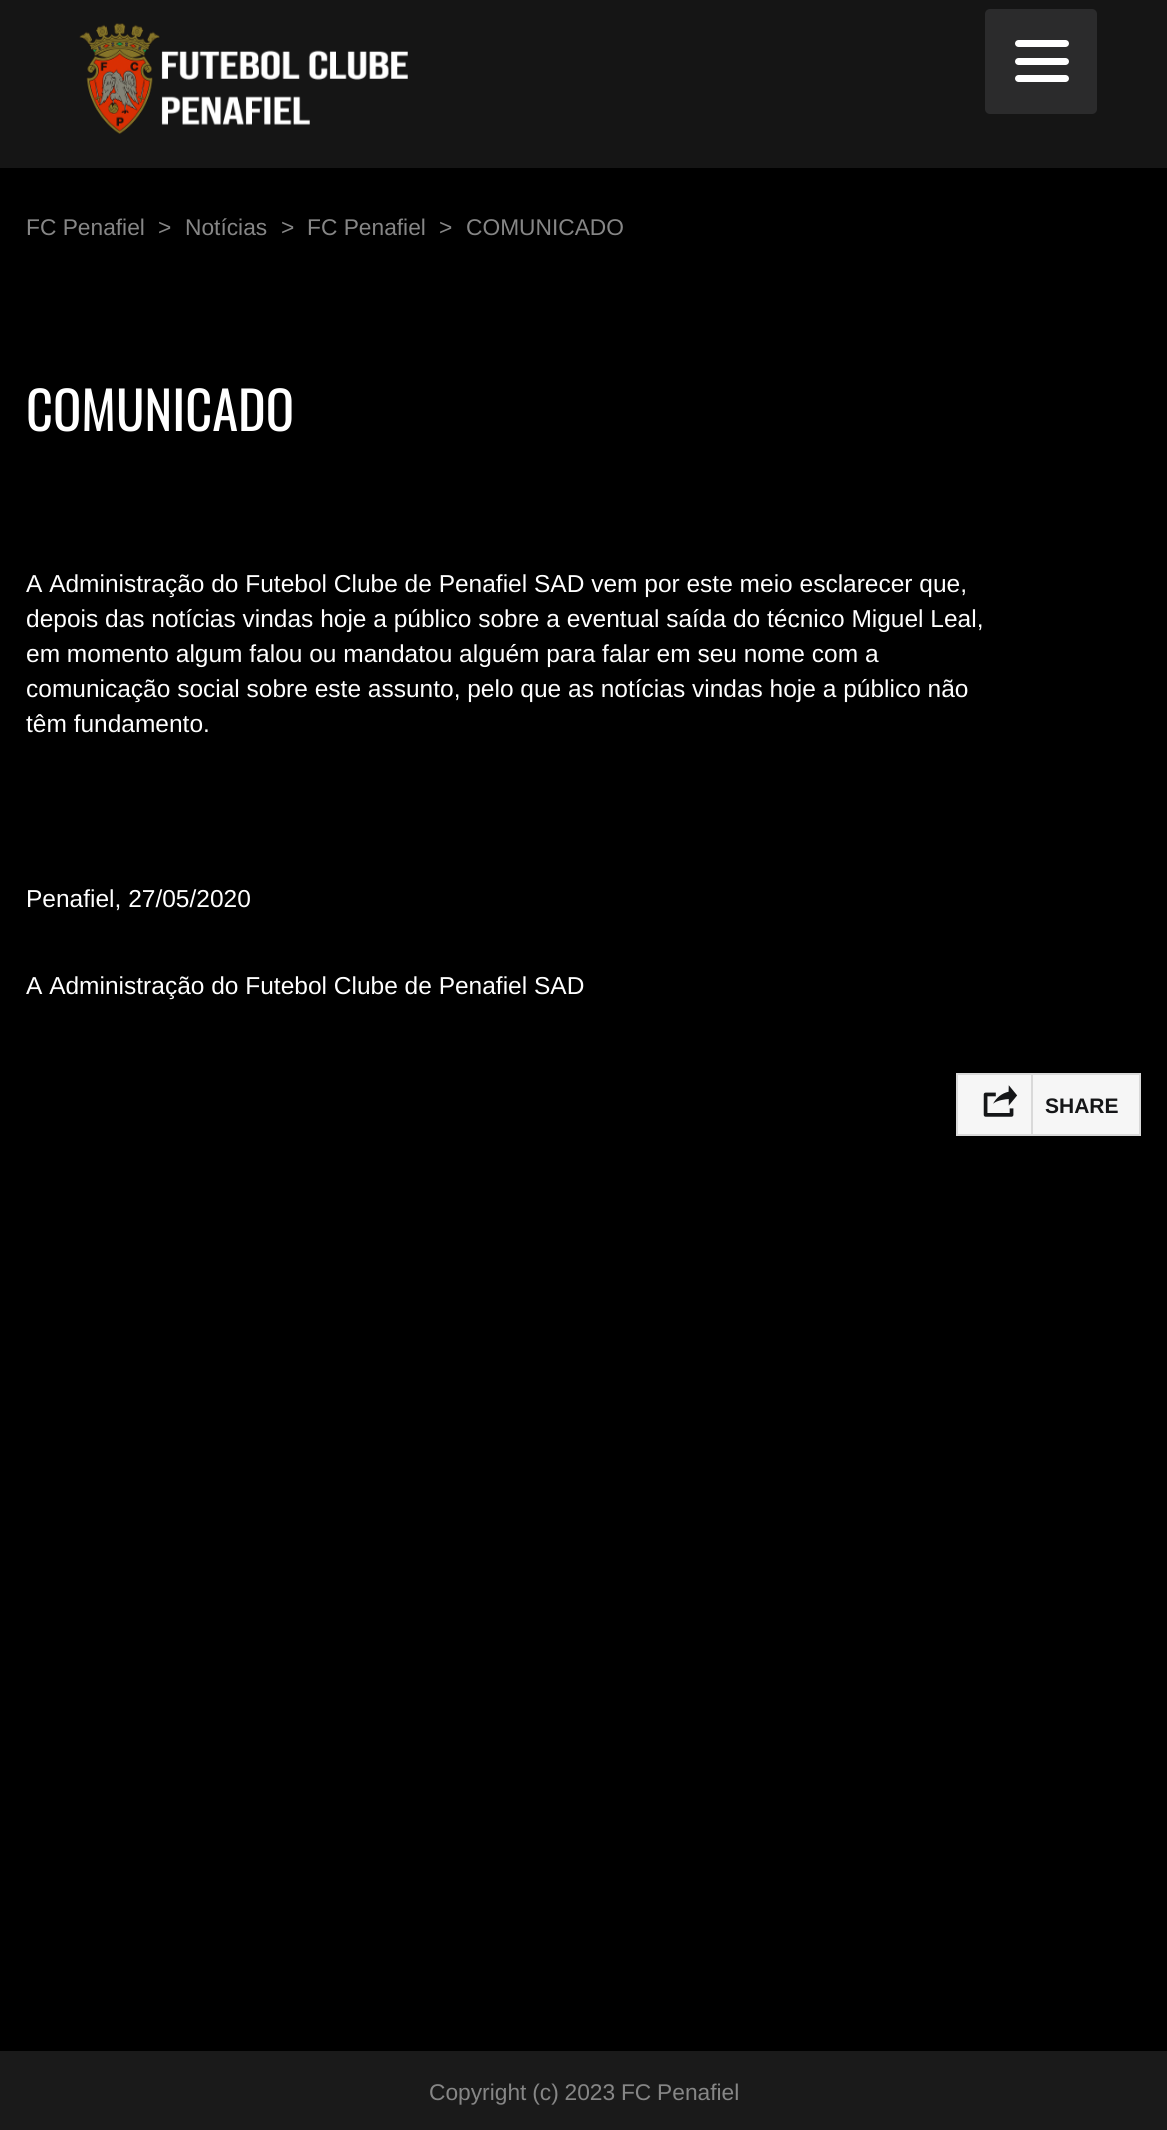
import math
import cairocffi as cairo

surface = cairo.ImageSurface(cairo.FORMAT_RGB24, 1167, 2130)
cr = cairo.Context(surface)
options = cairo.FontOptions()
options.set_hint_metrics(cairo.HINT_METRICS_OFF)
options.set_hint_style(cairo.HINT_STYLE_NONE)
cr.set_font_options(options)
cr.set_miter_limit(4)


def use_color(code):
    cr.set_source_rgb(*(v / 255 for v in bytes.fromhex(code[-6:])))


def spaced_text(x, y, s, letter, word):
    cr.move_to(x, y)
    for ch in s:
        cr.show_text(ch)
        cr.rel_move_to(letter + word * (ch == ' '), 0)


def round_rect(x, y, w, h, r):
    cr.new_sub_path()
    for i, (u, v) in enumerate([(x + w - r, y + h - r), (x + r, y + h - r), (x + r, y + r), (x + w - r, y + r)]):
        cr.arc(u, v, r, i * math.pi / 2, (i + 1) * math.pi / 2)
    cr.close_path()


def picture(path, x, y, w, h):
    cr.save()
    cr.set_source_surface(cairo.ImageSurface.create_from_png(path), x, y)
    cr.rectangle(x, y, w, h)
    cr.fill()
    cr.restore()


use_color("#1a1a1a")
cr.paint()
use_color("#000000")
cr.rectangle(0, 168, 1167, 1883)
cr.fill()
use_color("#151515")
cr.rectangle(0, 0, 1167, 168)
cr.fill()
picture("img1.png", 79, 23, 329, 111)
use_color("#2b2b2c")
round_rect(985, 9, 112, 105, 5)
cr.fill()
use_color("#ffffff")
round_rect(1015, 40, 54, 7, 3.5)
cr.fill()
round_rect(1015, 58, 54, 7, 3.5)
cr.fill()
round_rect(1015, 75, 54, 7, 3.5)
cr.fill()
cr.select_font_face("Liberation Sans")
cr.set_font_size(22.75)
use_color("#868686")
cr.move_to(26, 235)
cr.show_text("FC Penafiel")
cr.move_to(158, 235)
cr.show_text(">")
cr.move_to(185, 235)
cr.show_text("Notícias")
cr.move_to(281, 235)
cr.show_text(">")
cr.move_to(307, 235)
cr.show_text("FC Penafiel")
cr.move_to(439, 235)
cr.show_text(">")
cr.move_to(466, 235)
cr.show_text("COMUNICADO")
cr.select_font_face("Oswald")
cr.set_font_size(52.5)
use_color("#ffffff")
cr.move_to(26, 431)
cr.show_text("COMUNICADO")
cr.select_font_face("Liberation Sans")
cr.set_font_size(24.5)
cr.move_to(26, 592)
cr.show_text("A Administração do Futebol Clube de Penafiel SAD vem por este meio esclarecer que,")
cr.move_to(26, 627)
cr.show_text("depois das notícias vindas hoje a público sobre a eventual saída do técnico Miguel Leal,")
cr.move_to(26, 662)
cr.show_text("em momento algum falou ou mandatou alguém para falar em seu nome com a")
cr.move_to(26, 697)
cr.show_text("comunicação social sobre este assunto, pelo que as notícias vindas hoje a público não")
cr.move_to(26, 732)
cr.show_text("têm fundamento.")
cr.move_to(26, 907)
cr.show_text("Penafiel, 27/05/2020")
cr.move_to(26, 994)
cr.show_text("A Administração do Futebol Clube de Penafiel SAD")
use_color("#f6f6f6")
cr.rectangle(957, 1074, 183, 61)
cr.fill_preserve()
use_color("#d9d9d9")
cr.stroke()
picture("img2.png", 983, 1085, 35, 32)
cr.rectangle(1031, 1075, 2, 59)
cr.fill()
cr.select_font_face("Liberation Sans", cairo.FONT_SLANT_NORMAL, cairo.FONT_WEIGHT_BOLD)
cr.set_font_size(21)
use_color("#151618")
cr.move_to(1045, 1113)
cr.show_text("SHARE")
cr.select_font_face("Liberation Sans")
cr.set_font_size(22.75)
use_color("#868686")
spaced_text(429, 2100, "Copyright (c) 2023 FC Penafiel", 0, -0.5)
surface.write_to_png("result.png")
